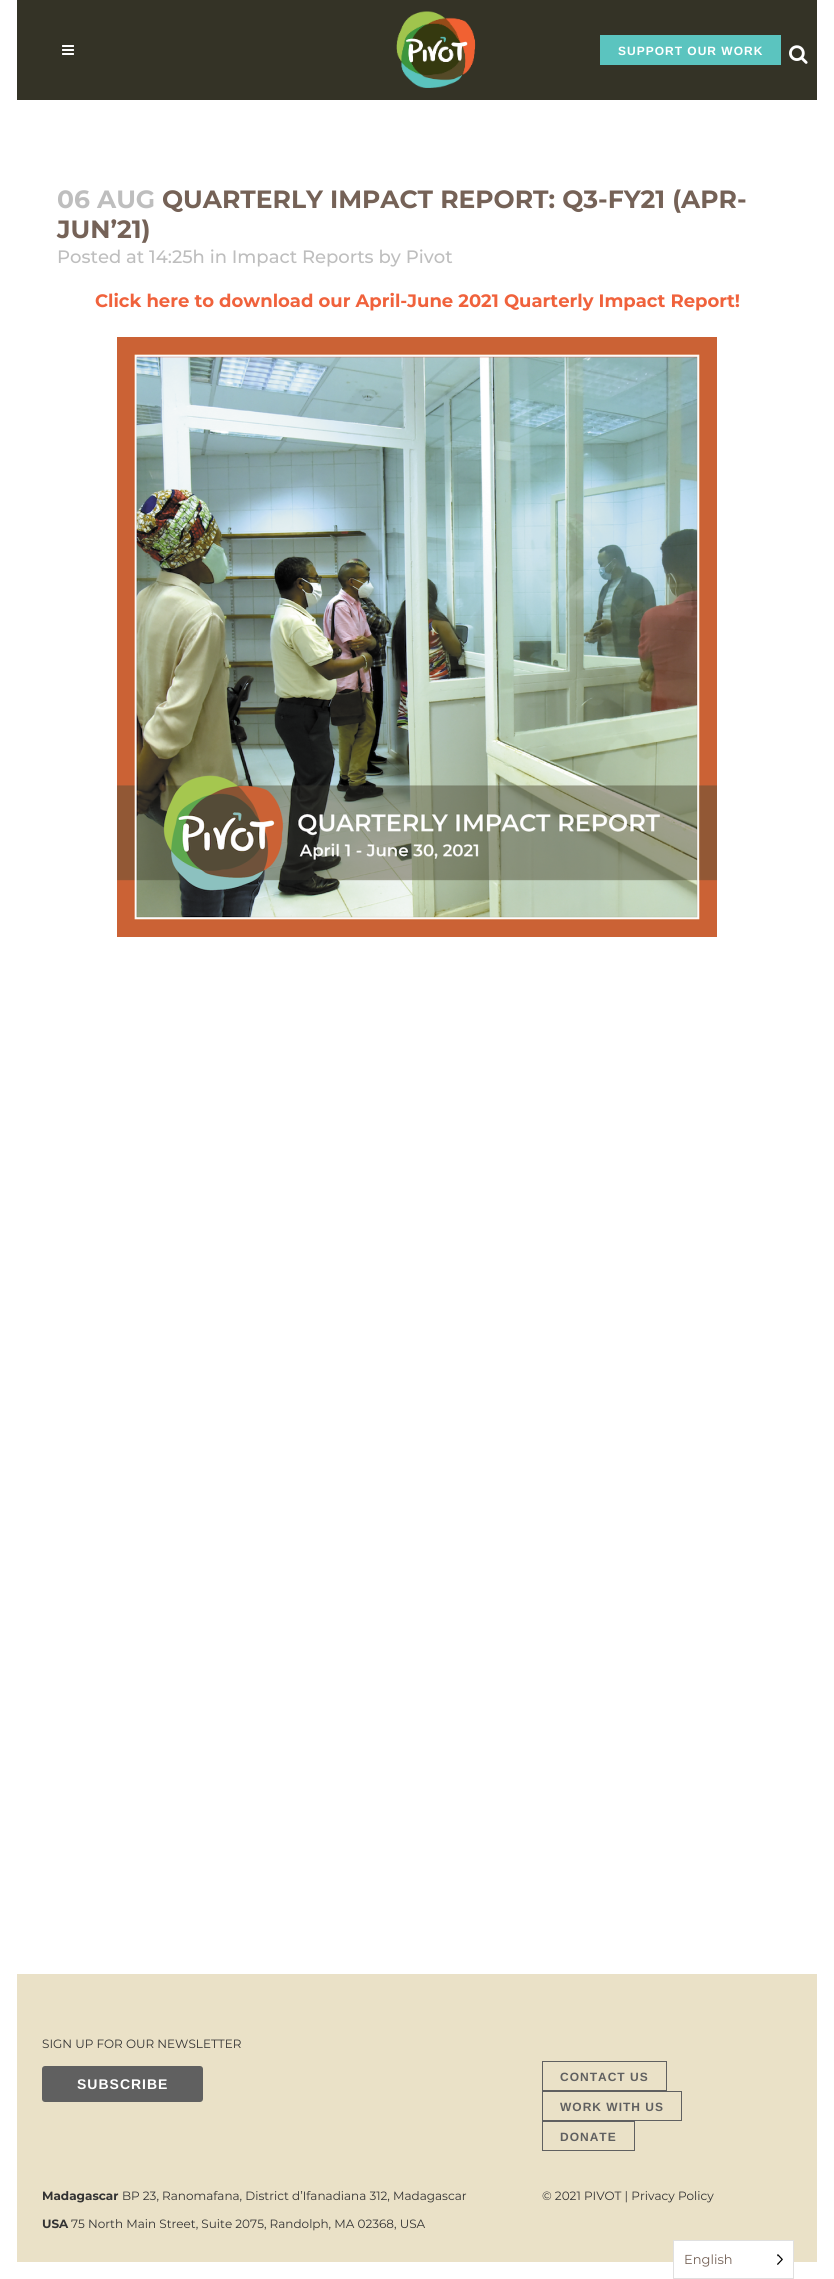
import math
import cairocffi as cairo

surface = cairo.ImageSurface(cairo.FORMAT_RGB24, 834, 2279)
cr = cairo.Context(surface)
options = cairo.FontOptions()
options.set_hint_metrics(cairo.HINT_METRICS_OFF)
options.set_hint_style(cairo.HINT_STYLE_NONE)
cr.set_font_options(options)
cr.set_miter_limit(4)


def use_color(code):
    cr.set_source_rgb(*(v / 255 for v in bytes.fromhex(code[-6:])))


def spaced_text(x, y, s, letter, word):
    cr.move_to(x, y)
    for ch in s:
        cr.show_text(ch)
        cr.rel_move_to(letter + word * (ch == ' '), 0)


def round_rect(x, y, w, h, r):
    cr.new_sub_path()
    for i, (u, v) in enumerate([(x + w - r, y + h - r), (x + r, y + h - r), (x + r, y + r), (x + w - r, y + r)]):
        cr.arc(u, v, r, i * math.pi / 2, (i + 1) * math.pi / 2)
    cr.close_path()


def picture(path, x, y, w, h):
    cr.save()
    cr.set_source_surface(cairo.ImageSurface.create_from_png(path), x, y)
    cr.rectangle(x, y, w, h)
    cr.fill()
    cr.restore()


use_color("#ffffff")
cr.paint()
use_color("#343326")
cr.rectangle(17, 0, 800, 100)
cr.fill()
picture("img1.png", 62, 45, 12, 10)
picture("img2.png", 396, 11, 80, 77)
use_color("#5bc4bf")
cr.rectangle(600, 35, 181, 30)
cr.fill()
cr.select_font_face("Liberation Sans", cairo.FONT_SLANT_NORMAL, cairo.FONT_WEIGHT_BOLD)
cr.set_font_size(12)
use_color("#ffffff")
spaced_text(618, 55, "SUPPORT OUR WORK", 1, 0)
picture("img3.png", 789, 45, 19, 19)
cr.select_font_face("Montserrat", cairo.FONT_SLANT_NORMAL, cairo.FONT_WEIGHT_BOLD)
cr.set_font_size(25)
use_color("#bebebe")
cr.move_to(57, 208)
cr.show_text("06 AUG")
use_color("#756257")
cr.move_to(162, 208)
cr.show_text("QUARTERLY IMPACT REPORT: Q3-FY21 (APR-")
cr.move_to(57, 238)
cr.show_text("JUN’21)")
cr.select_font_face("Montserrat Medium")
cr.set_font_size(18)
use_color("#bebebe")
cr.move_to(57, 263)
cr.show_text("Posted at 14:25h in Impact Reports by Pivot")
cr.select_font_face("Montserrat", cairo.FONT_SLANT_NORMAL, cairo.FONT_WEIGHT_BOLD)
use_color("#f0623c")
cr.move_to(95, 307)
cr.show_text("Click here to download our April-June 2021 Quarterly Impact Report!")
picture("img4.png", 117, 337, 600, 600)
use_color("#eae1c7")
cr.rectangle(17, 1974, 800, 288)
cr.fill()
cr.select_font_face("Montserrat")
cr.set_font_size(12)
use_color("#333333")
cr.move_to(42, 2048)
cr.show_text("SIGN UP FOR OUR NEWSLETTER")
use_color("#606060")
round_rect(42, 2066, 161, 36, 3)
cr.fill()
cr.select_font_face("Liberation Sans", cairo.FONT_SLANT_NORMAL, cairo.FONT_WEIGHT_BOLD)
cr.set_font_size(14)
use_color("#ffffff")
spaced_text(77, 2089, "SUBSCRIBE", 1, 0)
cr.rectangle(542.5, 2061.5, 124, 29)
use_color("#606060")
cr.set_line_width(1)
cr.stroke()
cr.set_font_size(12)
spaced_text(560, 2081, "CONTACT US", 1, 0)
cr.rectangle(542.5, 2091.5, 139, 29)
cr.stroke()
spaced_text(560, 2111, "WORK WITH US", 1, 0)
cr.rectangle(542.5, 2121.5, 92, 29)
cr.stroke()
spaced_text(560, 2141, "DONATE", 1, 0)
cr.select_font_face("Montserrat", cairo.FONT_SLANT_NORMAL, cairo.FONT_WEIGHT_BOLD)
use_color("#333333")
cr.move_to(42, 2200)
cr.show_text("Madagascar")
cr.select_font_face("Montserrat")
cr.move_to(122, 2200)
cr.show_text("BP 23, Ranomafana, District d’Ifanadiana 312, Madagascar")
cr.select_font_face("Montserrat", cairo.FONT_SLANT_NORMAL, cairo.FONT_WEIGHT_BOLD)
cr.move_to(42, 2228)
cr.show_text("USA")
cr.select_font_face("Montserrat")
cr.move_to(71, 2228)
cr.show_text("75 North Main Street, Suite 2075, Randolph, MA 02368, USA")
cr.move_to(542, 2200)
cr.show_text("© 2021 PIVOT | Privacy Policy")
use_color("#ffffff")
cr.rectangle(674, 2241, 119, 21)
cr.fill()
cr.rectangle(673.5, 2240.5, 120, 38)
use_color("#e0e0e0")
cr.stroke()
cr.set_font_size(13)
use_color("#756257")
cr.move_to(684, 2264)
cr.show_text("English")
picture("img5.png", 777, 2254, 6, 11)
surface.write_to_png("result.png")
